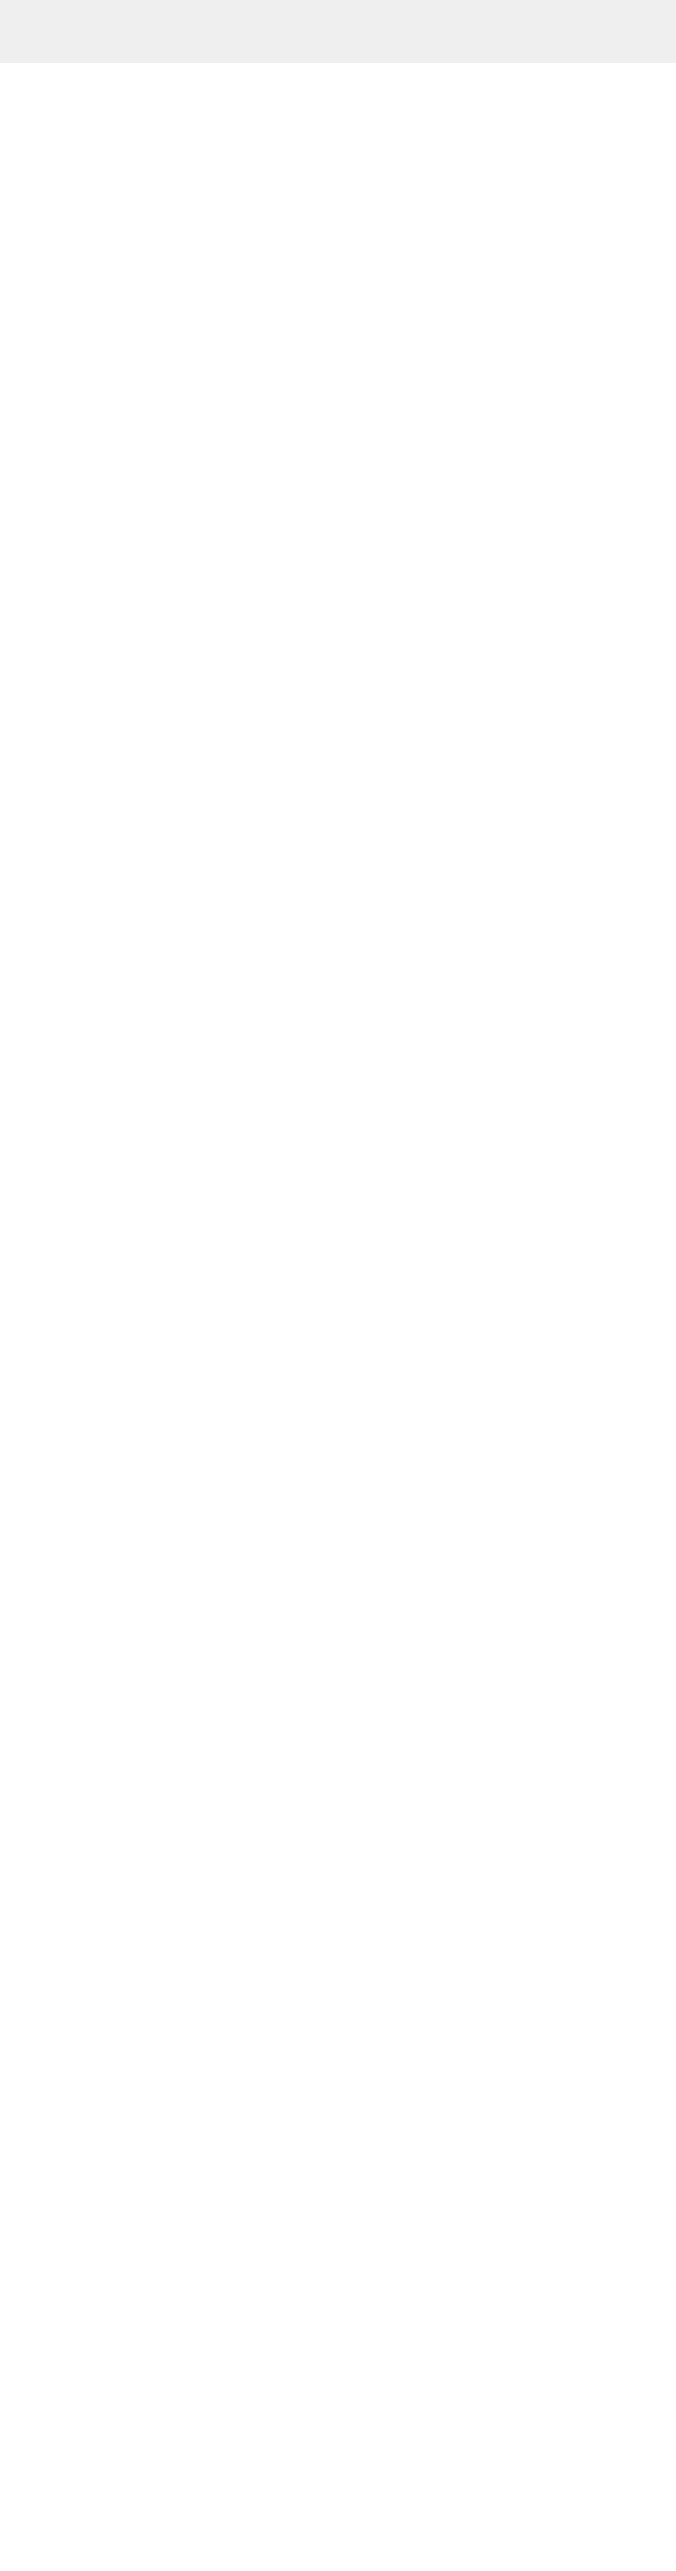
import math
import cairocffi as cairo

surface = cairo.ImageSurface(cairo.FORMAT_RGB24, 676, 2571)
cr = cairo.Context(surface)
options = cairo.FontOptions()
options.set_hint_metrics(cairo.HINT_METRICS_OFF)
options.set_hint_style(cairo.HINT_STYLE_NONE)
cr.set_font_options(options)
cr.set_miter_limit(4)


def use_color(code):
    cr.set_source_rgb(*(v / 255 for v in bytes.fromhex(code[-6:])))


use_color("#ffffff")
cr.paint()
use_color("#efefef")
cr.rectangle(0, 0, 676, 63)
cr.fill()
surface.write_to_png("result.png")
